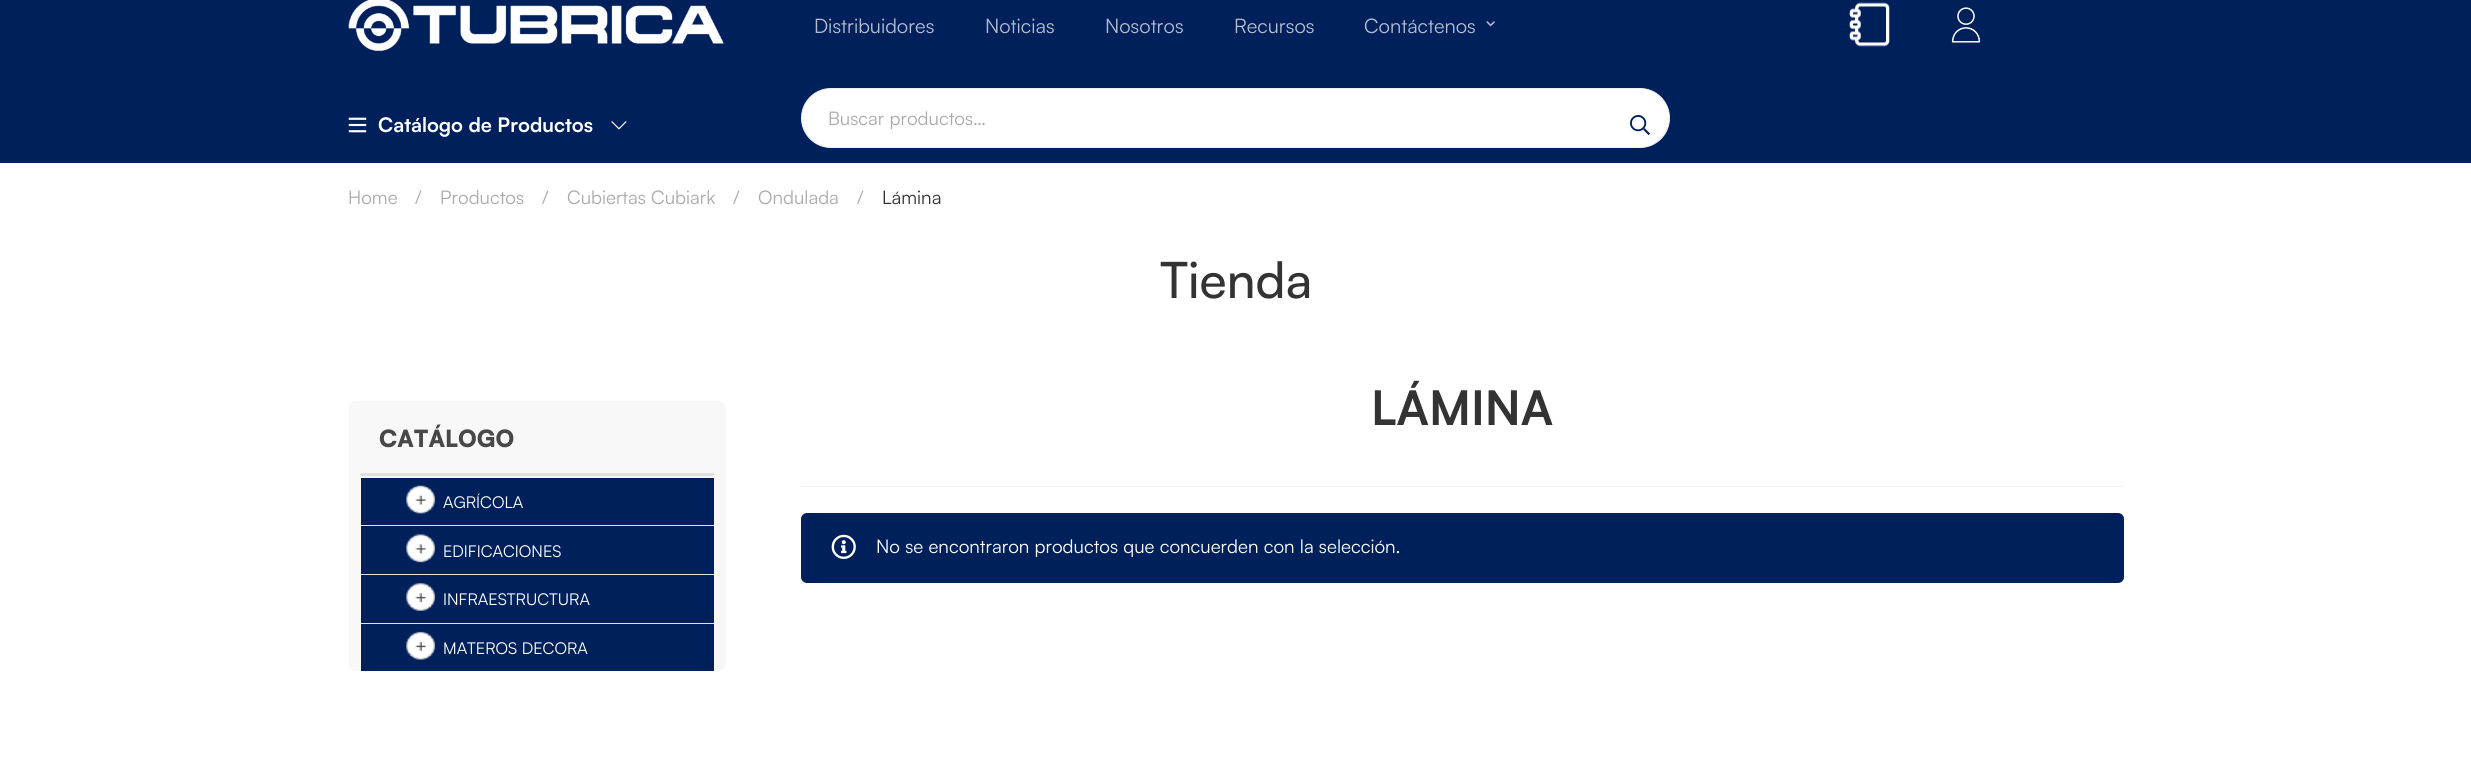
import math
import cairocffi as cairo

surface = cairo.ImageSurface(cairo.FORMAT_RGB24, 2471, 783)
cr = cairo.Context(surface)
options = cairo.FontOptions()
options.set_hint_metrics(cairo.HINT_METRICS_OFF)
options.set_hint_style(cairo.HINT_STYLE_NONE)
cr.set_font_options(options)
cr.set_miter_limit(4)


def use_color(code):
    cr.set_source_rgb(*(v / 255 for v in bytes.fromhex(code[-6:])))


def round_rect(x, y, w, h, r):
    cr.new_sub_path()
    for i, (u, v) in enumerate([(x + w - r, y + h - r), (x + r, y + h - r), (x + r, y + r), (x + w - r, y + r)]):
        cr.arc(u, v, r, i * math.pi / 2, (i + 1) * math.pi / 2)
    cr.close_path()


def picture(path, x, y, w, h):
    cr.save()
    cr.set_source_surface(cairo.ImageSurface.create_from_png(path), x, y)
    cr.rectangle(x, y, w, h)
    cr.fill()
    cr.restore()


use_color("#ffffff")
cr.paint()
use_color("#00205c")
cr.rectangle(0, 0, 2471, 163)
cr.fill()
picture("img1.png", 348, 0, 376, 51)
cr.select_font_face("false")
cr.set_font_size(20)
use_color("#b3bcce")
cr.move_to(814, 33)
cr.show_text("Distribuidores")
cr.move_to(985, 33)
cr.show_text("Noticias")
cr.move_to(1105, 33)
cr.show_text("Nosotros")
cr.move_to(1234, 33)
cr.show_text("Recursos")
cr.move_to(1364, 33)
cr.show_text("Contáctenos")
picture("img2.png", 1486, 21, 9, 6)
picture("img3.png", 1849, 2, 41, 45)
picture("img4.png", 1951, 7, 30, 36)
picture("img5.png", 348, 117, 19, 16)
cr.select_font_face("false", cairo.FONT_SLANT_NORMAL, cairo.FONT_WEIGHT_BOLD)
use_color("#ffffff")
cr.move_to(378, 132)
cr.show_text("Catálogo de Productos")
picture("img6.png", 611, 121, 16, 9)
round_rect(801.5, 88.5, 868, 59, 29.5)
cr.fill_preserve()
use_color("#eeeeee")
cr.set_line_width(1)
cr.stroke()
cr.select_font_face("false")
cr.set_font_size(18.75)
use_color("#ababab")
cr.move_to(828, 125)
cr.show_text("Buscar productos…")
picture("img7.png", 1630, 115, 20, 20)
cr.move_to(348, 204)
cr.show_text("Home")
cr.move_to(415, 204)
cr.show_text("/")
cr.move_to(440, 204)
cr.show_text("Productos")
cr.move_to(542, 204)
cr.show_text("/")
cr.move_to(567, 204)
cr.show_text("Cubiertas Cubiark")
cr.move_to(733, 204)
cr.show_text("/")
cr.move_to(758, 204)
cr.show_text("Ondulada")
cr.move_to(857, 204)
cr.show_text("/")
use_color("#333333")
cr.move_to(882, 204)
cr.show_text("Lámina")
cr.select_font_face("Satoshi Medium")
cr.set_font_size(50)
cr.move_to(1160, 298)
cr.show_text("Tienda")
use_color("#f8f8f8")
round_rect(349, 401, 377, 270, 6)
cr.fill()
use_color("#e0e0e0")
cr.rectangle(361, 473, 353, 3)
cr.fill()
cr.select_font_face("Satoshi Black")
cr.set_font_size(23.5)
use_color("#484848")
cr.move_to(379, 447)
cr.show_text("CATÁLOGO")
use_color("#00205b")
cr.rectangle(361, 478, 353, 47)
cr.fill()
use_color("#e2e2e2")
cr.rectangle(361, 525, 353, 1)
cr.fill()
picture("img8.png", 406, 485, 30, 29)
cr.select_font_face("false")
cr.set_font_size(16.25)
use_color("#ffffff")
cr.move_to(443, 508)
cr.show_text("AGRÍCOLA")
use_color("#00205b")
cr.rectangle(361, 526, 353, 48)
cr.fill()
use_color("#e2e2e2")
cr.rectangle(361, 574, 353, 1)
cr.fill()
picture("img9.png", 406, 534, 30, 29)
use_color("#ffffff")
cr.move_to(443, 557)
cr.show_text("EDIFICACIONES")
use_color("#00205b")
cr.rectangle(361, 575, 353, 48)
cr.fill()
use_color("#e2e2e2")
cr.rectangle(361, 623, 353, 1)
cr.fill()
picture("img10.png", 406, 583, 30, 28)
use_color("#ffffff")
cr.move_to(443, 605)
cr.show_text("INFRAESTRUCTURA")
use_color("#00205b")
cr.rectangle(361, 624, 353, 47)
cr.fill()
picture("img11.png", 406, 631, 30, 29)
use_color("#ffffff")
cr.move_to(443, 654)
cr.show_text("MATEROS DECORA")
cr.select_font_face("false", cairo.FONT_SLANT_NORMAL, cairo.FONT_WEIGHT_BOLD)
cr.set_font_size(47.5)
use_color("#333333")
cr.move_to(1371, 425)
cr.show_text("LÁMINA")
use_color("#f2f2f2")
cr.rectangle(801, 486, 1323, 1)
cr.fill()
use_color("#00205c")
round_rect(801, 513, 1323, 70, 6)
cr.fill()
picture("img12.png", 831, 534, 25, 25)
cr.select_font_face("false")
cr.set_font_size(18.75)
use_color("#ffffff")
cr.move_to(876, 553)
cr.show_text("No se encontraron productos que concuerden con la selección.")
surface.write_to_png("result.png")
